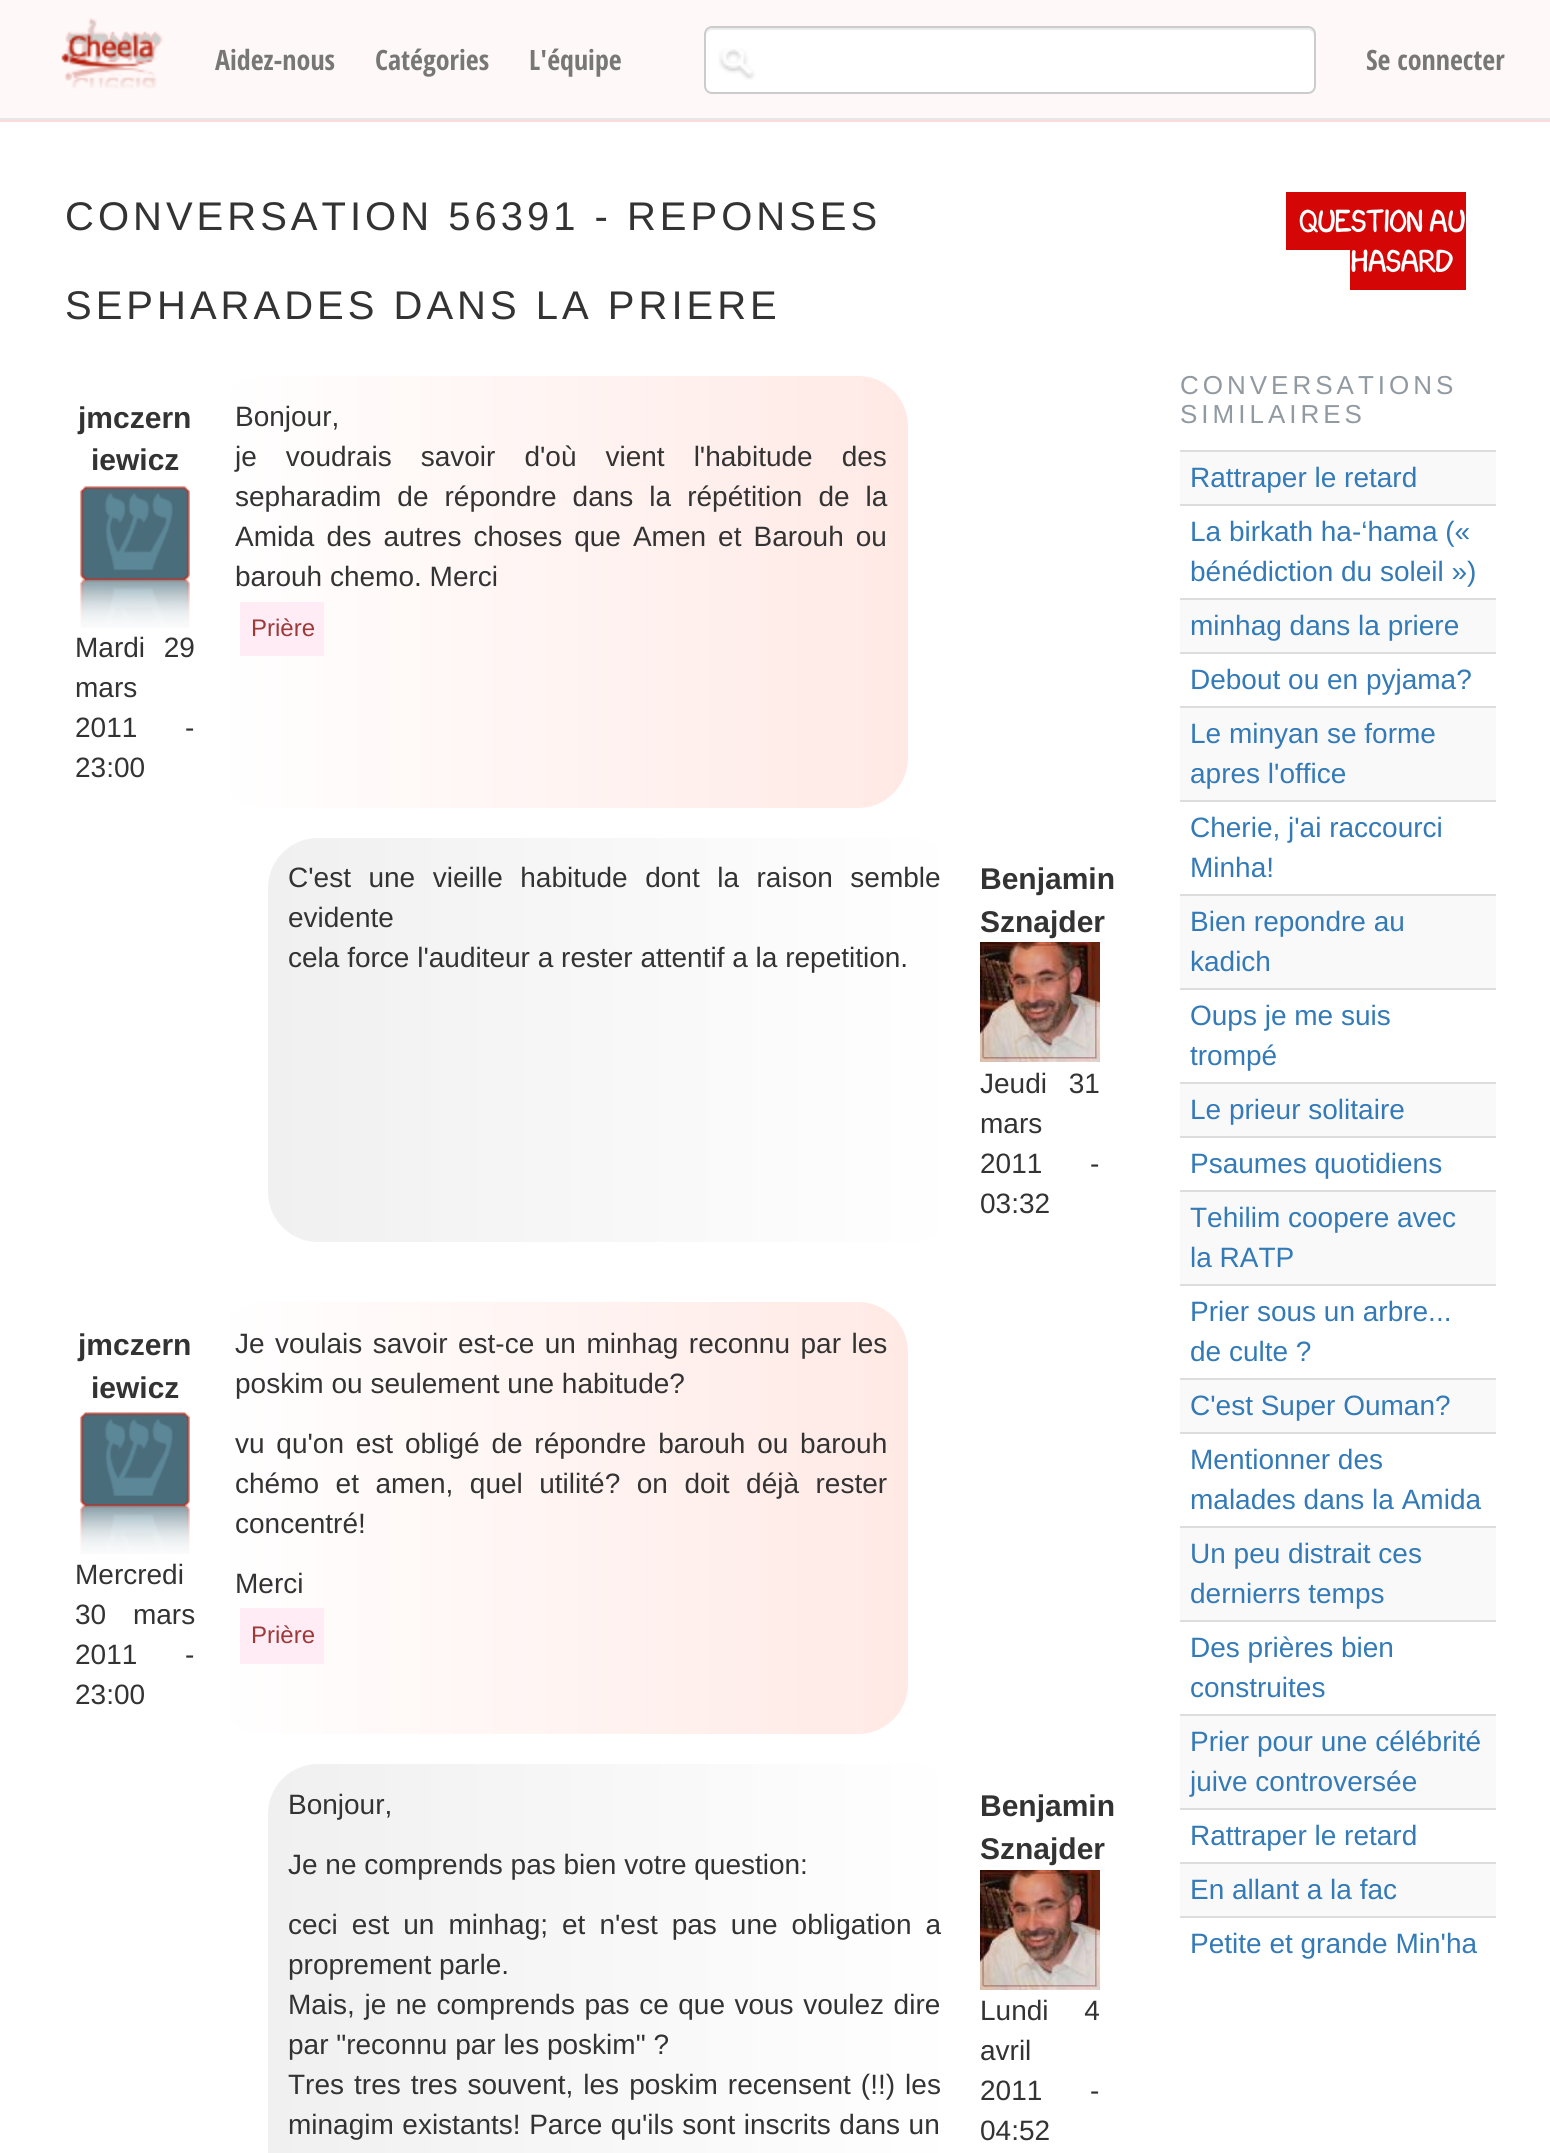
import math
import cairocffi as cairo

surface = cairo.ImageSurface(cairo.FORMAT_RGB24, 1550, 2153)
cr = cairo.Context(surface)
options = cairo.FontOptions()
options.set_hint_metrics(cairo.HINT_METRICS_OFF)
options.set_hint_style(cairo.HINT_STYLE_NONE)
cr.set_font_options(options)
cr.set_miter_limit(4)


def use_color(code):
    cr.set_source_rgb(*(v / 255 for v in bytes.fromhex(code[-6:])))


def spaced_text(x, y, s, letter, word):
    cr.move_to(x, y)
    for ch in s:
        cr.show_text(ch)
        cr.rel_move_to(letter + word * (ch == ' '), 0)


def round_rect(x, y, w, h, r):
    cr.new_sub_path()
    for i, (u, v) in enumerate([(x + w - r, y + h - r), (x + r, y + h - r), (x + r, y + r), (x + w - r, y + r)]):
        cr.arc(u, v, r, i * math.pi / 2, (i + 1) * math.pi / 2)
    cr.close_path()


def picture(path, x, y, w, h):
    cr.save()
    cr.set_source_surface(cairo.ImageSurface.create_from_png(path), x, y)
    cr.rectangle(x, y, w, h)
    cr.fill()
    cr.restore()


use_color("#ffffff")
cr.paint()
use_color("#ffdbdb")
cr.rectangle(0, 120, 1550, 2)
cr.fill()
use_color("#fff8f8")
cr.rectangle(0, 0, 1550, 118)
cr.fill()
use_color("#e7e7e7")
cr.rectangle(0, 118, 1550, 2)
cr.fill()
picture("img1.png", 61, 17, 102, 72)
cr.select_font_face("Open Sans Condensed", cairo.FONT_SLANT_NORMAL, cairo.FONT_WEIGHT_BOLD)
cr.set_font_size(28)
use_color("#777777")
cr.move_to(215, 70)
cr.show_text("Aidez-nous")
cr.move_to(375, 70)
cr.show_text("Catégories")
cr.move_to(529, 70)
cr.show_text("L'équipe")
use_color("#ffffff")
round_rect(704, 26, 612, 68, 8)
cr.fill()
picture("img2.png", 718, 48, 38, 32)
use_color("#ececec")
cr.new_path()
cr.move_to(712, 30)
cr.line_to(1308, 30)
cr.curve_to(1311, 30, 1314, 33, 1314, 36)
cr.line_to(1314, 34)
cr.curve_to(1314, 31, 1311, 28, 1308, 28)
cr.line_to(712, 28)
cr.curve_to(709, 28, 706, 31, 706, 34)
cr.line_to(706, 36)
cr.curve_to(706, 33, 709, 30, 712, 30)
cr.close_path()
cr.fill()
round_rect(705, 27, 610, 66, 7)
use_color("#cccccc")
cr.stroke()
use_color("#777777")
cr.move_to(1366, 70)
cr.show_text("Se connecter")
cr.select_font_face("Liberation Sans")
cr.set_font_size(40)
use_color("#333333")
spaced_text(65, 230, "CONVERSATION 56391 - REPONSES", 4, 0)
spaced_text(65, 319, "SEPHARADES DANS LA PRIERE", 4, 0)
cr.select_font_face("Liberation Sans", cairo.FONT_SLANT_NORMAL, cairo.FONT_WEIGHT_BOLD)
cr.set_font_size(30)
cr.move_to(78, 428)
cr.show_text("jmczern")
cr.move_to(91, 470)
cr.show_text("iewicz")
picture("img3.png", 80, 486, 110, 142)
cr.select_font_face("Liberation Sans")
cr.set_font_size(28)
spaced_text(75, 657, "Mardi 29", 0, 11)
cr.move_to(75, 697)
cr.show_text("mars")
spaced_text(75, 737, "2011 -", 0, 40)
cr.move_to(75, 777)
cr.show_text("23:00")
gradient = cairo.LinearGradient(214, 592, 908, 592)
gradient.add_color_stop_rgba(0, 1, 1, 1, 1)
gradient.add_color_stop_rgba(1, 1, 0.914, 0.898, 1)
cr.set_source(gradient)
round_rect(214, 376, 694, 432, 50)
cr.fill()
use_color("#333333")
cr.move_to(235, 426)
cr.show_text("Bonjour,")
spaced_text(235, 466, "je voudrais savoir d'où vient l'habitude des", 0, 21.25)
spaced_text(235, 506, "sepharadim de répondre dans la répétition de la", 0, 8.25)
spaced_text(235, 546, "Amida des autres choses que Amen et Barouh ou", 0, 4.25)
cr.move_to(235, 586)
cr.show_text("barouh chemo. Merci")
use_color("#ffecf4")
cr.rectangle(240, 602, 84, 54)
cr.fill()
cr.set_font_size(24)
use_color("#9d3939")
cr.move_to(251, 636)
cr.show_text("Prière")
gradient = cairo.LinearGradient(960, 1040, 268, 1040)
gradient.add_color_stop_rgba(0, 1, 1, 1, 1)
gradient.add_color_stop_rgba(1, 0.941, 0.941, 0.941, 1)
cr.set_source(gradient)
round_rect(268, 838, 692, 404, 50)
cr.fill()
cr.set_font_size(28)
use_color("#333333")
spaced_text(288, 887, "C'est une vieille habitude dont la raison semble", 0, 9.75)
cr.move_to(288, 927)
cr.show_text("evidente")
cr.move_to(288, 967)
cr.show_text("cela force l'auditeur a rester attentif a la repetition.")
cr.select_font_face("Liberation Sans", cairo.FONT_SLANT_NORMAL, cairo.FONT_WEIGHT_BOLD)
cr.set_font_size(30)
cr.move_to(980, 889)
cr.show_text("Benjamin")
cr.move_to(980, 932)
cr.show_text("Sznajder")
picture("img4.png", 980, 942, 120, 120)
cr.select_font_face("Liberation Sans")
cr.set_font_size(28)
spaced_text(980, 1093, "Jeudi 31", 0, 14)
cr.move_to(980, 1133)
cr.show_text("mars")
spaced_text(980, 1173, "2011 -", 0, 40)
cr.move_to(980, 1213)
cr.show_text("03:32")
cr.select_font_face("Liberation Sans", cairo.FONT_SLANT_NORMAL, cairo.FONT_WEIGHT_BOLD)
cr.set_font_size(30)
cr.move_to(78, 1355)
cr.show_text("jmczern")
cr.move_to(91, 1398)
cr.show_text("iewicz")
picture("img3.png", 80, 1412, 110, 142)
cr.select_font_face("Liberation Sans")
cr.set_font_size(28)
cr.move_to(75, 1584)
cr.show_text("Mercredi")
spaced_text(75, 1624, "30 mars", 0, 19)
spaced_text(75, 1664, "2011 -", 0, 40)
cr.move_to(75, 1704)
cr.show_text("23:00")
gradient = cairo.LinearGradient(214, 1518, 908, 1518)
gradient.add_color_stop_rgba(0, 1, 1, 1, 1)
gradient.add_color_stop_rgba(1, 1, 0.914, 0.898, 1)
cr.set_source(gradient)
round_rect(214, 1302, 694, 432, 50)
cr.fill()
use_color("#333333")
spaced_text(235, 1353, "Je voulais savoir est-ce un minhag reconnu par les", 0, 2.75)
cr.move_to(235, 1393)
cr.show_text("poskim ou seulement une habitude?")
spaced_text(235, 1453, "vu qu'on est obligé de répondre barouh ou barouh", 0, 4)
spaced_text(235, 1493, "chémo et amen, quel utilité? on doit déjà rester", 0, 8.75)
cr.move_to(235, 1533)
cr.show_text("concentré!")
cr.move_to(235, 1593)
cr.show_text("Merci")
use_color("#ffecf4")
cr.rectangle(240, 1608, 84, 56)
cr.fill()
cr.set_font_size(24)
use_color("#9d3939")
cr.move_to(251, 1643)
cr.show_text("Prière")
gradient = cairo.LinearGradient(960, 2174, 268, 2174)
gradient.add_color_stop_rgba(0, 1, 1, 1, 1)
gradient.add_color_stop_rgba(1, 0.941, 0.941, 0.941, 1)
cr.set_source(gradient)
round_rect(268, 1764, 692, 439, 50)
cr.fill()
cr.set_font_size(28)
use_color("#333333")
cr.move_to(288, 1814)
cr.show_text("Bonjour,")
cr.move_to(288, 1874)
cr.show_text("Je ne comprends pas bien votre question:")
spaced_text(288, 1934, "ceci est un minhag; et n'est pas une obligation a", 0, 6.25)
cr.move_to(288, 1974)
cr.show_text("proprement parle.")
spaced_text(288, 2014, "Mais, je ne comprends pas ce que vous voulez dire", 0, 1.75)
cr.move_to(288, 2054)
cr.show_text("par \"reconnu par les poskim\" ?")
spaced_text(288, 2094, "Tres tres tres souvent, les poskim recensent (!!) les", 0, 2.25)
spaced_text(288, 2134, "minagim existants! Parce qu'ils sont inscrits dans un", 0, 0.75)
cr.select_font_face("Liberation Sans", cairo.FONT_SLANT_NORMAL, cairo.FONT_WEIGHT_BOLD)
cr.set_font_size(30)
cr.move_to(980, 1816)
cr.show_text("Benjamin")
cr.move_to(980, 1859)
cr.show_text("Sznajder")
picture("img5.png", 980, 1870, 120, 120)
cr.select_font_face("Liberation Sans")
cr.set_font_size(28)
spaced_text(980, 2020, "Lundi 4", 0, 28)
cr.move_to(980, 2060)
cr.show_text("avril")
spaced_text(980, 2100, "2011 -", 0, 40)
cr.move_to(980, 2140)
cr.show_text("04:52")
use_color("#d40606")
cr.rectangle(1286, 192, 180, 58)
cr.fill()
cr.select_font_face("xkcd")
use_color("#ffffff")
cr.move_to(1299, 232)
cr.show_text("Question au")
use_color("#d40606")
cr.rectangle(1350, 250, 116, 40)
cr.fill()
use_color("#ffffff")
cr.move_to(1351, 272)
cr.show_text("hasard")
cr.select_font_face("Liberation Sans")
cr.set_font_size(26)
use_color("#9199a1")
spaced_text(1180, 394, "CONVERSATIONS", 4, 0)
spaced_text(1180, 423, "SIMILAIRES", 4, 0)
use_color("#f9f9f9")
cr.rectangle(1180, 452, 316, 52)
cr.fill()
use_color("#dddddd")
cr.rectangle(1180, 450, 316, 2)
cr.fill()
cr.set_font_size(28)
use_color("#337ab7")
cr.move_to(1190, 487)
cr.show_text("Rattraper le retard")
use_color("#dddddd")
cr.rectangle(1180, 504, 316, 2)
cr.fill()
use_color("#337ab7")
cr.move_to(1190, 541)
cr.show_text("La birkath ha-‘hama («")
cr.move_to(1190, 581)
cr.show_text("bénédiction du soleil »)")
use_color("#f9f9f9")
cr.rectangle(1180, 600, 316, 52)
cr.fill()
use_color("#dddddd")
cr.rectangle(1180, 598, 316, 2)
cr.fill()
use_color("#337ab7")
cr.move_to(1190, 635)
cr.show_text("minhag dans la priere")
use_color("#dddddd")
cr.rectangle(1180, 652, 316, 2)
cr.fill()
use_color("#337ab7")
cr.move_to(1190, 689)
cr.show_text("Debout ou en pyjama?")
use_color("#f9f9f9")
cr.rectangle(1180, 708, 316, 92)
cr.fill()
use_color("#dddddd")
cr.rectangle(1180, 706, 316, 2)
cr.fill()
use_color("#337ab7")
cr.move_to(1190, 743)
cr.show_text("Le minyan se forme")
cr.move_to(1190, 783)
cr.show_text("apres l'office")
use_color("#dddddd")
cr.rectangle(1180, 800, 316, 2)
cr.fill()
use_color("#337ab7")
cr.move_to(1190, 837)
cr.show_text("Cherie, j'ai raccourci")
cr.move_to(1190, 877)
cr.show_text("Minha!")
use_color("#f9f9f9")
cr.rectangle(1180, 896, 316, 92)
cr.fill()
use_color("#dddddd")
cr.rectangle(1180, 894, 316, 2)
cr.fill()
use_color("#337ab7")
cr.move_to(1190, 931)
cr.show_text("Bien repondre au")
cr.move_to(1190, 971)
cr.show_text("kadich")
use_color("#dddddd")
cr.rectangle(1180, 988, 316, 2)
cr.fill()
use_color("#337ab7")
cr.move_to(1190, 1025)
cr.show_text("Oups je me suis")
cr.move_to(1190, 1065)
cr.show_text("trompé")
use_color("#f9f9f9")
cr.rectangle(1180, 1084, 316, 52)
cr.fill()
use_color("#dddddd")
cr.rectangle(1180, 1082, 316, 2)
cr.fill()
use_color("#337ab7")
cr.move_to(1190, 1119)
cr.show_text("Le prieur solitaire")
use_color("#dddddd")
cr.rectangle(1180, 1136, 316, 2)
cr.fill()
use_color("#337ab7")
cr.move_to(1190, 1173)
cr.show_text("Psaumes quotidiens")
use_color("#f9f9f9")
cr.rectangle(1180, 1192, 316, 92)
cr.fill()
use_color("#dddddd")
cr.rectangle(1180, 1190, 316, 2)
cr.fill()
use_color("#337ab7")
cr.move_to(1190, 1227)
cr.show_text("Tehilim coopere avec")
cr.move_to(1190, 1267)
cr.show_text("la RATP")
use_color("#dddddd")
cr.rectangle(1180, 1284, 316, 2)
cr.fill()
use_color("#337ab7")
cr.move_to(1190, 1321)
cr.show_text("Prier sous un arbre...")
cr.move_to(1190, 1361)
cr.show_text("de culte ?")
use_color("#f9f9f9")
cr.rectangle(1180, 1380, 316, 52)
cr.fill()
use_color("#dddddd")
cr.rectangle(1180, 1378, 316, 2)
cr.fill()
use_color("#337ab7")
cr.move_to(1190, 1415)
cr.show_text("C'est Super Ouman?")
use_color("#dddddd")
cr.rectangle(1180, 1432, 316, 2)
cr.fill()
use_color("#337ab7")
cr.move_to(1190, 1469)
cr.show_text("Mentionner des")
cr.move_to(1190, 1509)
cr.show_text("malades dans la Amida")
use_color("#f9f9f9")
cr.rectangle(1180, 1528, 316, 92)
cr.fill()
use_color("#dddddd")
cr.rectangle(1180, 1526, 316, 2)
cr.fill()
use_color("#337ab7")
cr.move_to(1190, 1563)
cr.show_text("Un peu distrait ces")
cr.move_to(1190, 1603)
cr.show_text("dernierrs temps")
use_color("#dddddd")
cr.rectangle(1180, 1620, 316, 2)
cr.fill()
use_color("#337ab7")
cr.move_to(1190, 1657)
cr.show_text("Des prières bien")
cr.move_to(1190, 1697)
cr.show_text("construites")
use_color("#f9f9f9")
cr.rectangle(1180, 1716, 316, 92)
cr.fill()
use_color("#dddddd")
cr.rectangle(1180, 1714, 316, 2)
cr.fill()
use_color("#337ab7")
cr.move_to(1190, 1751)
cr.show_text("Prier pour une célébrité")
cr.move_to(1190, 1791)
cr.show_text("juive controversée")
use_color("#dddddd")
cr.rectangle(1180, 1808, 316, 2)
cr.fill()
use_color("#337ab7")
cr.move_to(1190, 1845)
cr.show_text("Rattraper le retard")
use_color("#f9f9f9")
cr.rectangle(1180, 1864, 316, 52)
cr.fill()
use_color("#dddddd")
cr.rectangle(1180, 1862, 316, 2)
cr.fill()
use_color("#337ab7")
cr.move_to(1190, 1899)
cr.show_text("En allant a la fac")
use_color("#dddddd")
cr.rectangle(1180, 1916, 316, 2)
cr.fill()
use_color("#337ab7")
cr.move_to(1190, 1953)
cr.show_text("Petite et grande Min'ha")
surface.write_to_png("result.png")
